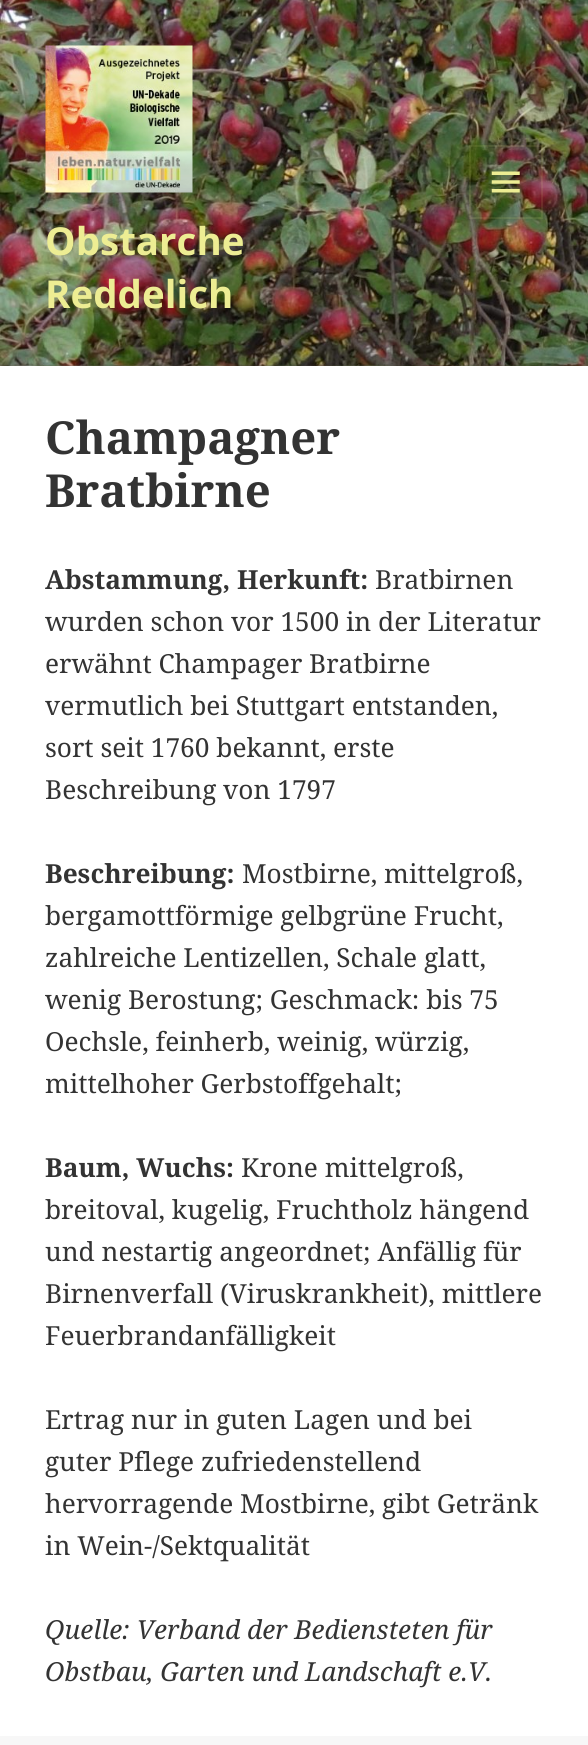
import math
import cairocffi as cairo

surface = cairo.ImageSurface(cairo.FORMAT_RGB24, 588, 1745)
cr = cairo.Context(surface)
options = cairo.FontOptions()
options.set_hint_metrics(cairo.HINT_METRICS_OFF)
options.set_hint_style(cairo.HINT_STYLE_NONE)
cr.set_font_options(options)
cr.set_miter_limit(4)


def use_color(code):
    cr.set_source_rgb(*(v / 255 for v in bytes.fromhex(code[-6:])))


def picture(path, x, y, w, h):
    cr.save()
    cr.set_source_surface(cairo.ImageSurface.create_from_png(path), x, y)
    cr.rectangle(x, y, w, h)
    cr.fill()
    cr.restore()


use_color("#ffffff")
cr.paint()
picture("img1.png", 0, 365, 588, 1)
picture("img2.png", 0, 0, 588, 366)
cr.set_source_rgba(0.2, 0.2, 0.2, 0.1)
cr.rectangle(0, 364, 588, 2)
cr.fill()
picture("img3.png", 45, 45, 148, 148)
cr.rectangle(470, 146, 72, 72)
cr.set_source_rgba(0.929, 0.929, 0.576, 0.1)
cr.stroke()
picture("img4.png", 491, 171, 29, 22)
cr.select_font_face("Noto Sans", cairo.FONT_SLANT_NORMAL, cairo.FONT_WEIGHT_BOLD)
cr.set_font_size(38.5)
use_color("#eded93")
cr.move_to(45, 255)
cr.show_text("Obstarche")
cr.move_to(45, 308)
cr.show_text("Reddelich")
cr.select_font_face("Noto Serif", cairo.FONT_SLANT_NORMAL, cairo.FONT_WEIGHT_BOLD)
cr.set_font_size(45.5)
use_color("#333333")
cr.move_to(45, 454)
cr.show_text("Champagner")
cr.move_to(45, 507)
cr.show_text("Bratbirne")
cr.set_font_size(26.25)
cr.move_to(45, 589)
cr.show_text("Abstammung, Herkunft:")
cr.select_font_face("Noto Serif")
cr.move_to(375, 589)
cr.show_text("Bratbirnen")
cr.move_to(45, 631)
cr.show_text("wurden schon vor 1500 in der Literatur")
cr.move_to(45, 673)
cr.show_text("erwähnt Champager Bratbirne")
cr.move_to(45, 715)
cr.show_text("vermutlich bei Stuttgart entstanden,")
cr.move_to(45, 757)
cr.show_text("sort seit 1760 bekannt, erste")
cr.move_to(45, 799)
cr.show_text("Beschreibung von 1797")
cr.select_font_face("Noto Serif", cairo.FONT_SLANT_NORMAL, cairo.FONT_WEIGHT_BOLD)
cr.move_to(45, 883)
cr.show_text("Beschreibung:")
cr.select_font_face("Noto Serif")
cr.move_to(242, 883)
cr.show_text("Mostbirne, mittelgroß,")
cr.move_to(45, 925)
cr.show_text("bergamottförmige gelbgrüne Frucht,")
cr.move_to(45, 967)
cr.show_text("zahlreiche Lentizellen, Schale glatt,")
cr.move_to(45, 1009)
cr.show_text("wenig Berostung; Geschmack: bis 75")
cr.move_to(45, 1051)
cr.show_text("Oechsle, feinherb, weinig, würzig,")
cr.move_to(45, 1093)
cr.show_text("mittelhoher Gerbstoffgehalt;")
cr.select_font_face("Noto Serif", cairo.FONT_SLANT_NORMAL, cairo.FONT_WEIGHT_BOLD)
cr.move_to(45, 1177)
cr.show_text("Baum, Wuchs:")
cr.select_font_face("Noto Serif")
cr.move_to(241, 1177)
cr.show_text("Krone mittelgroß,")
cr.move_to(45, 1219)
cr.show_text("breitoval, kugelig, Fruchtholz hängend")
cr.move_to(45, 1261)
cr.show_text("und nestartig angeordnet; Anfällig für")
cr.move_to(45, 1303)
cr.show_text("Birnenverfall (Viruskrankheit), mittlere")
cr.move_to(45, 1345)
cr.show_text("Feuerbrandanfälligkeit")
cr.move_to(45, 1429)
cr.show_text("Ertrag nur in guten Lagen und bei")
cr.move_to(45, 1471)
cr.show_text("guter Pflege zufriedenstellend")
cr.move_to(45, 1513)
cr.show_text("hervorragende Mostbirne, gibt Getränk")
cr.move_to(45, 1555)
cr.show_text("in Wein-/Sektqualität")
cr.select_font_face("Noto Serif", cairo.FONT_SLANT_ITALIC)
cr.move_to(45, 1639)
cr.show_text("Quelle: Verband der Bediensteten für")
cr.move_to(45, 1681)
cr.show_text("Obstbau, Garten und Landschaft e.V.")
use_color("#f7f7f7")
cr.rectangle(0, 1736, 588, 9)
cr.fill()
surface.write_to_png("result.png")
